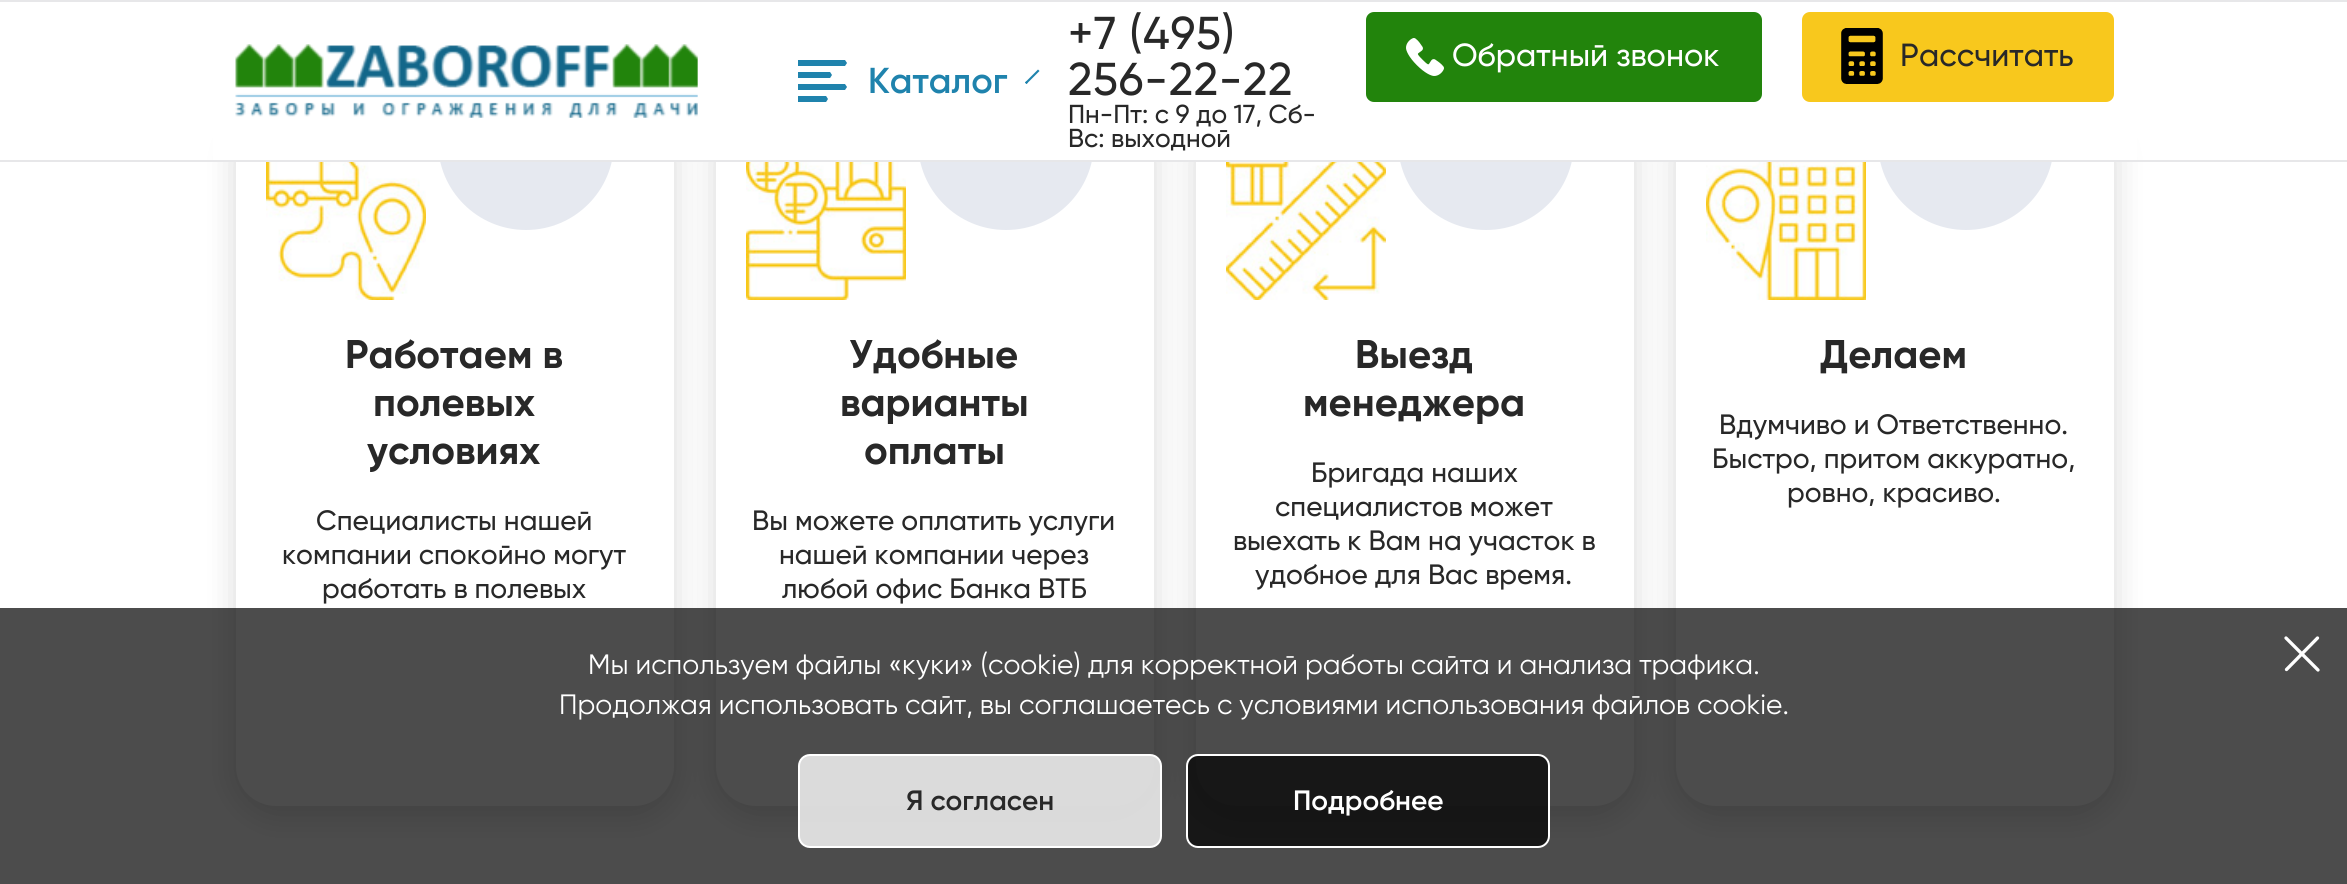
import math
import cairocffi as cairo

surface = cairo.ImageSurface(cairo.FORMAT_RGB24, 2347, 884)
cr = cairo.Context(surface)
options = cairo.FontOptions()
options.set_hint_metrics(cairo.HINT_METRICS_OFF)
options.set_hint_style(cairo.HINT_STYLE_NONE)
cr.set_font_options(options)
cr.set_miter_limit(4)


def use_color(code):
    cr.set_source_rgb(*(v / 255 for v in bytes.fromhex(code[-6:])))


def spaced_text(x, y, s, letter, word):
    cr.move_to(x, y)
    for ch in s:
        cr.show_text(ch)
        cr.rel_move_to(letter + word * (ch == ' '), 0)


def round_rect(x, y, w, h, r):
    cr.new_sub_path()
    for i, (u, v) in enumerate([(x + w - r, y + h - r), (x + r, y + h - r), (x + r, y + r), (x + w - r, y + r)]):
        cr.arc(u, v, r, i * math.pi / 2, (i + 1) * math.pi / 2)
    cr.close_path()


def shadow(x, y, w, h, r, blur, alpha):
    cr.push_group_with_content(cairo.CONTENT_ALPHA)
    cr.set_operator(cairo.OPERATOR_SOURCE)
    for i in range(15, -16, -2):
        e = blur * i / 6
        if min(w, h) + 2 * e > 0:
            cr.set_source_rgba(0, 0, 0, alpha * math.erfc((i - 1) / 8.5) / 2)
            round_rect(x - e, y - e, w + 2 * e, h + 2 * e, max(0, min(r + e + blur * .6, min(w, h) / 2 + e)))
            cr.fill()
    cr.mask(cr.pop_group())


def picture(path, x, y, w, h):
    cr.save()
    cr.set_source_surface(cairo.ImageSurface.create_from_png(path), x, y)
    cr.rectangle(x, y, w, h)
    cr.fill()
    cr.restore()


use_color("#ffffff")
cr.paint()
use_color("#000000")
shadow(236, 118, 438, 696, 40, 16, 0.15)
use_color("#ffffff")
round_rect(236, 110, 438, 696, 40)
cr.fill()
use_color("#e6e9f0")
cr.arc(526, 142, 88, 0, 2 * math.pi)
cr.fill()
use_color("#000000")
shadow(716, 118, 438, 696, 40, 16, 0.15)
use_color("#ffffff")
round_rect(716, 110, 438, 696, 40)
cr.fill()
use_color("#e6e9f0")
cr.arc(1006, 142, 88, 0, 2 * math.pi)
cr.fill()
use_color("#000000")
shadow(1196, 118, 438, 696, 40, 16, 0.15)
use_color("#ffffff")
round_rect(1196, 110, 438, 696, 40)
cr.fill()
use_color("#e6e9f0")
cr.arc(1486, 142, 88, 0, 2 * math.pi)
cr.fill()
use_color("#000000")
shadow(1676, 118, 438, 696, 40, 16, 0.15)
use_color("#ffffff")
round_rect(1676, 110, 438, 696, 40)
cr.fill()
use_color("#e6e9f0")
cr.arc(1966, 142, 88, 0, 2 * math.pi)
cr.fill()
use_color("#ffffff")
cr.rectangle(213, 54, 1924, 106)
cr.fill()
use_color("#e7e7e9")
cr.rectangle(0, 160, 2347, 2)
cr.fill()
cr.rectangle(0, 0, 2347, 2)
cr.fill()
picture("img1.png", 235, 44, 463, 74)
picture("img2.png", 798, 60, 49, 42)
cr.select_font_face("Gilroy SemiBold")
cr.set_font_size(36)
use_color("#1f83ad")
cr.move_to(868, 93)
cr.show_text("Каталог")
cr.new_path()
cr.move_to(1038, 69.5)
cr.line_to(1039.5, 71)
cr.line_to(1026.5, 84)
cr.line_to(1025, 82.5)
cr.close_path()
cr.fill()
cr.new_path()
cr.move_to(1026.5, 81)
cr.line_to(1028, 82.5)
cr.line_to(1026.5, 84)
cr.line_to(1025, 82.5)
cr.close_path()
cr.fill()
cr.select_font_face("Gilroy Medium")
cr.set_font_size(46)
use_color("#282828")
spaced_text(1068, 49, "+7 (495)", 0.75, 0)
spaced_text(1068, 95, "256-22-22", 0.75, 0)
cr.set_font_size(26)
cr.move_to(1068, 123)
cr.show_text("Пн-Пт: с 9 до 17, Сб-")
cr.move_to(1068, 147)
cr.show_text("Вс: выходной")
use_color("#22840c")
round_rect(1366, 12, 396, 90, 8)
cr.fill()
picture("img3.png", 1406, 38, 38, 38)
cr.set_font_size(32)
use_color("#ffffff")
cr.move_to(1452, 66)
cr.show_text("Обратный звонок")
use_color("#f8c81d")
round_rect(1802, 12, 312, 90, 8)
cr.fill()
picture("img4.png", 1841, 28, 42, 56)
use_color("#282828")
cr.move_to(1900, 66)
cr.show_text("Рассчитать")
picture("img5.png", 266, 162, 160, 138)
cr.select_font_face("Gilroy", cairo.FONT_SLANT_NORMAL, cairo.FONT_WEIGHT_BOLD)
cr.set_font_size(40)
cr.move_to(345, 368)
cr.show_text("Работаем в")
cr.move_to(373, 416)
cr.show_text("полевых")
cr.move_to(367, 464)
cr.show_text("условиях")
cr.select_font_face("Gilroy Medium")
cr.set_font_size(28)
cr.move_to(316, 530)
cr.show_text("Специалисты нашей")
cr.move_to(282, 564)
cr.show_text("компании спокойно могут")
cr.move_to(322, 598)
cr.show_text("работать в полевых")
picture("img6.png", 746, 162, 160, 138)
cr.select_font_face("Gilroy", cairo.FONT_SLANT_NORMAL, cairo.FONT_WEIGHT_BOLD)
cr.set_font_size(40)
cr.move_to(849, 368)
cr.show_text("Удобные")
cr.move_to(840, 416)
cr.show_text("варианты")
cr.move_to(864, 464)
cr.show_text("оплаты")
cr.select_font_face("Gilroy Medium")
cr.set_font_size(28)
cr.move_to(752, 530)
cr.show_text("Вы можете оплатить услуги")
cr.move_to(779, 564)
cr.show_text("нашей компании через")
cr.move_to(782, 598)
cr.show_text("любой офис Банка ВТБ")
picture("img7.png", 1226, 162, 160, 138)
cr.select_font_face("Gilroy", cairo.FONT_SLANT_NORMAL, cairo.FONT_WEIGHT_BOLD)
cr.set_font_size(40)
cr.move_to(1355, 368)
cr.show_text("Выезд")
cr.move_to(1303, 416)
cr.show_text("менеджера")
cr.select_font_face("Gilroy Medium")
cr.set_font_size(28)
cr.move_to(1311, 482)
cr.show_text("Бригада наших")
cr.move_to(1275, 516)
cr.show_text("специалистов может")
cr.move_to(1233, 550)
cr.show_text("выехать к Вам на участок в")
cr.move_to(1255, 584)
cr.show_text("удобное для Вас время.")
picture("img8.png", 1706, 162, 160, 138)
cr.select_font_face("Gilroy", cairo.FONT_SLANT_NORMAL, cairo.FONT_WEIGHT_BOLD)
cr.set_font_size(40)
cr.move_to(1820, 368)
cr.show_text("Делаем")
cr.select_font_face("Gilroy Medium")
cr.set_font_size(28)
cr.move_to(1719, 434)
cr.show_text("Вдумчиво и Ответственно.")
cr.move_to(1712, 468)
cr.show_text("Быстро, притом аккуратно,")
cr.move_to(1787, 502)
cr.show_text("ровно, красиво.")
cr.set_source_rgba(0, 0, 0, 0.7)
cr.rectangle(0, 608, 2347, 276)
cr.fill()
cr.select_font_face("Gilroy")
use_color("#ffffff")
cr.move_to(588, 674)
cr.show_text("Мы используем файлы «куки» (cookie) для корректной работы сайта и анализа трафика.")
cr.move_to(559, 714)
cr.show_text("Продолжая использовать сайт, вы соглашаетесь с условиями использования файлов cookie.")
cr.new_path()
cr.move_to(2318, 670)
cr.line_to(2286, 638)
cr.move_to(2317.5, 638)
cr.line_to(2286.5, 669.5)
cr.set_line_width(3.3)
cr.set_line_cap(cairo.LINE_CAP_ROUND)
cr.set_line_join(cairo.LINE_JOIN_ROUND)
cr.stroke()
cr.set_source_rgba(1, 1, 1, 0.8)
round_rect(799, 755, 362, 92, 11)
cr.fill_preserve()
use_color("#ffffff")
cr.set_line_width(2)
cr.set_line_cap(cairo.LINE_CAP_BUTT)
cr.set_line_join(cairo.LINE_JOIN_MITER)
cr.stroke()
cr.select_font_face("Gilroy SemiBold")
use_color("#282828")
cr.move_to(906, 810)
cr.show_text("Я согласен")
cr.set_source_rgba(0, 0, 0, 0.7)
round_rect(1187, 755, 362, 92, 11)
cr.fill_preserve()
use_color("#ffffff")
cr.stroke()
cr.move_to(1293, 810)
cr.show_text("Подробнее")
surface.write_to_png("result.png")
